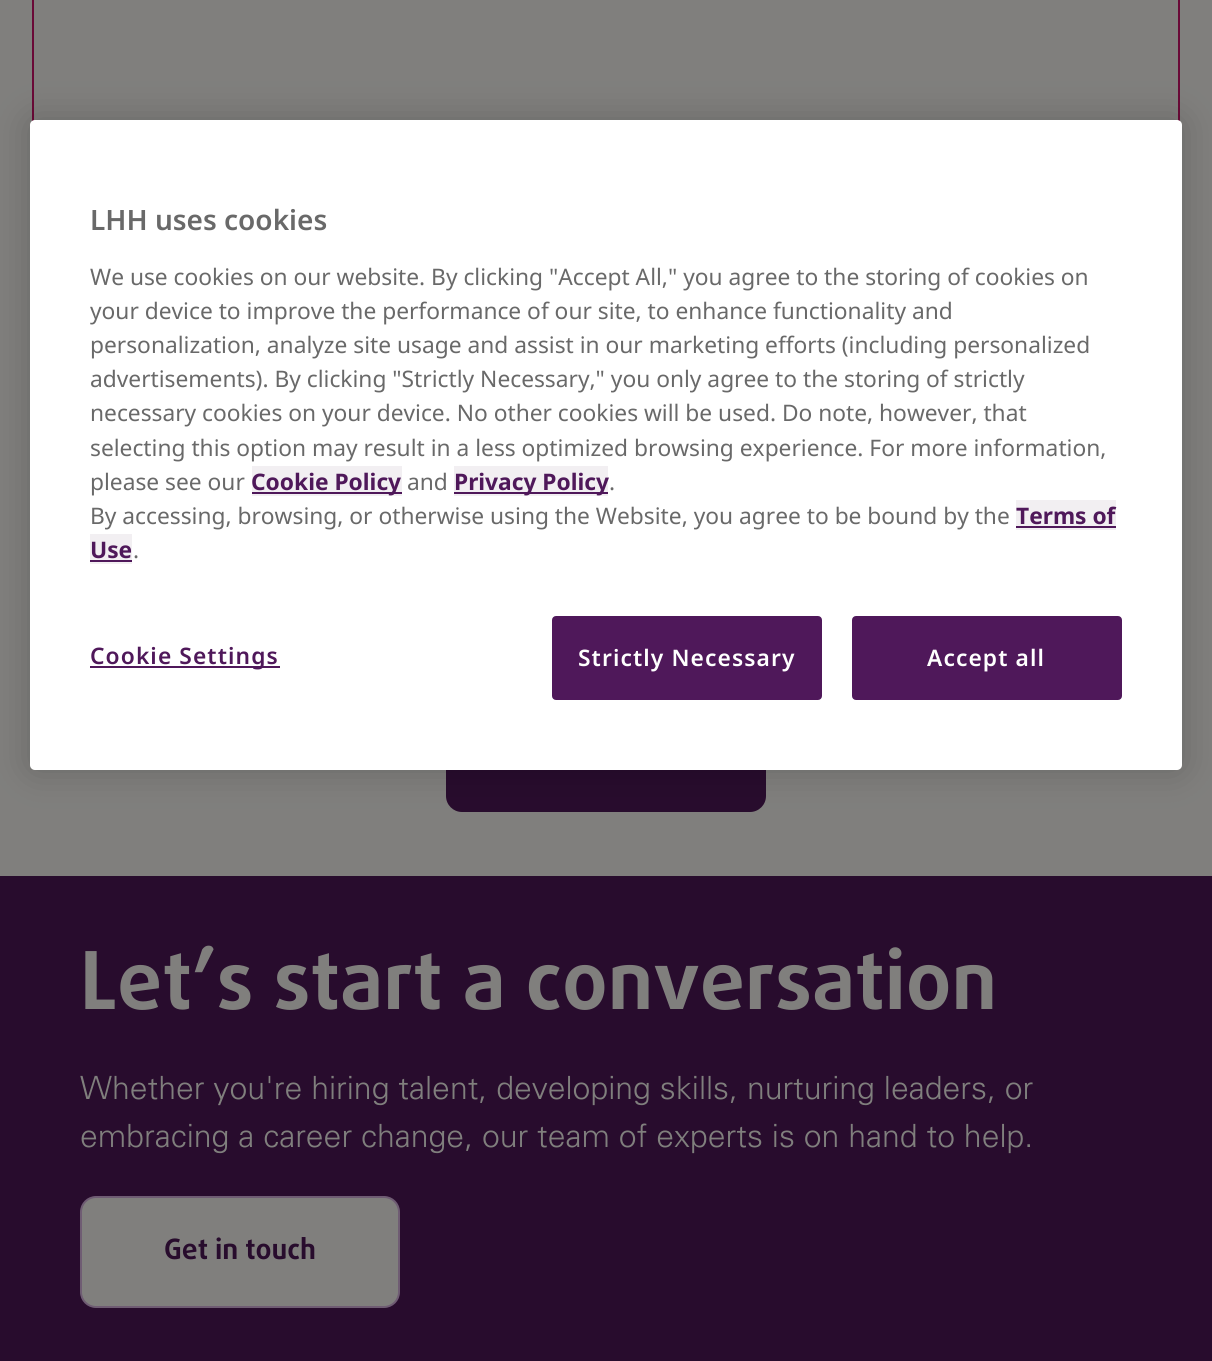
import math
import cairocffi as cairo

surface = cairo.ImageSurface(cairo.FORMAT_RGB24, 1212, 1361)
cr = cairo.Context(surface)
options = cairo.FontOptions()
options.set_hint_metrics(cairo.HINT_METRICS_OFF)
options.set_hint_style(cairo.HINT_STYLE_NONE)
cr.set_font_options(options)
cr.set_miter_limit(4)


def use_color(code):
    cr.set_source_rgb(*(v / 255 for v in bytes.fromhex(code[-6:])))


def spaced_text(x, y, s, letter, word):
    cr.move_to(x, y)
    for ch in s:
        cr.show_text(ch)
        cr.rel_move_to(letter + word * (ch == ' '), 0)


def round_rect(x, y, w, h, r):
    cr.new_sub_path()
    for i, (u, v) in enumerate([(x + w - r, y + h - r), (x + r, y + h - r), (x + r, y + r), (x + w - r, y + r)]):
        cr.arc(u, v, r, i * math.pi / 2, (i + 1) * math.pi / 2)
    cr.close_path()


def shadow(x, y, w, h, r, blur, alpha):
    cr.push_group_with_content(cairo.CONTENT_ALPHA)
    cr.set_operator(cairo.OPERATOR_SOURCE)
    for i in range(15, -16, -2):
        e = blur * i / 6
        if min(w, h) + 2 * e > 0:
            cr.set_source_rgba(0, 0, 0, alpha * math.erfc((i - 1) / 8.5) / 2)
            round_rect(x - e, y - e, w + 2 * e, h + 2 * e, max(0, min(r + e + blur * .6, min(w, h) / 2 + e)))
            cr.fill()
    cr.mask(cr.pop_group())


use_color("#807f7d")
cr.paint()
cr.rectangle(33, -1, 1146, 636)
use_color("#6a0937")
cr.stroke()
use_color("#280c2d")
round_rect(446, 700, 320, 112, 16)
cr.fill()
use_color("#000000")
shadow(30, 120, 1152, 650, 5, 18, 0.2)
use_color("#ffffff")
round_rect(30, 120, 1152, 650, 5)
cr.fill()
cr.select_font_face("Noto Sans SemiBold")
cr.set_font_size(28)
use_color("#696969")
cr.move_to(90, 230)
cr.show_text("LHH uses cookies")
cr.select_font_face("Noto Sans")
cr.set_font_size(22.75)
cr.move_to(90, 285)
cr.show_text("We use cookies on our website. By clicking \"Accept All,\" you agree to the storing of cookies on")
cr.move_to(90, 319)
cr.show_text("your device to improve the performance of our site, to enhance functionality and")
cr.move_to(90, 353)
cr.show_text("personalization, analyze site usage and assist in our marketing efforts (including personalized")
cr.move_to(90, 387)
cr.show_text("advertisements). By clicking \"Strictly Necessary,\" you only agree to the storing of strictly")
cr.move_to(90, 421)
cr.show_text("necessary cookies on your device. No other cookies will be used. Do note, however, that")
cr.move_to(90, 456)
cr.show_text("selecting this option may result in a less optimized browsing experience. For more information,")
cr.move_to(90, 490)
cr.show_text("please see our")
use_color("#f2eff2")
cr.rectangle(252, 466, 150, 30)
cr.fill()
use_color("#4f185a")
cr.rectangle(252, 492, 150, 2)
cr.fill()
cr.select_font_face("Noto Sans", cairo.FONT_SLANT_NORMAL, cairo.FONT_WEIGHT_BOLD)
cr.move_to(251, 490)
cr.show_text("Cookie Policy")
cr.select_font_face("Noto Sans")
use_color("#696969")
cr.move_to(407, 490)
cr.show_text("and")
use_color("#f2eff2")
cr.rectangle(454, 466, 154, 30)
cr.fill()
use_color("#4f185a")
cr.rectangle(454, 492, 154, 2)
cr.fill()
cr.select_font_face("Noto Sans", cairo.FONT_SLANT_NORMAL, cairo.FONT_WEIGHT_BOLD)
cr.move_to(454, 490)
cr.show_text("Privacy Policy")
cr.select_font_face("Noto Sans")
use_color("#696969")
cr.move_to(609, 490)
cr.show_text(".")
cr.move_to(90, 524)
cr.show_text("By accessing, browsing, or otherwise using the Website, you agree to be bound by the")
use_color("#f2eff2")
cr.rectangle(1016, 500, 100, 30)
cr.fill()
cr.select_font_face("Noto Sans", cairo.FONT_SLANT_NORMAL, cairo.FONT_WEIGHT_BOLD)
use_color("#4f185a")
cr.move_to(1016, 524)
cr.show_text("Terms of")
cr.rectangle(1016, 526, 100, 2)
cr.fill()
use_color("#f2eff2")
cr.rectangle(90, 534, 42, 30)
cr.fill()
use_color("#4f185a")
cr.move_to(90, 558)
cr.show_text("Use")
cr.rectangle(90, 560, 42, 2)
cr.fill()
cr.select_font_face("Noto Sans")
use_color("#696969")
cr.move_to(133, 558)
cr.show_text(".")
use_color("#4f185a")
cr.rectangle(90, 666, 190, 2)
cr.fill()
cr.select_font_face("Noto Sans SemiBold")
spaced_text(90, 664, "Cookie Settings", 1.1, 0)
round_rect(553, 617, 268, 82, 3)
cr.fill_preserve()
cr.stroke()
use_color("#ffffff")
spaced_text(578, 666, "Strictly Necessary", 1.1, 0)
use_color("#4f185a")
round_rect(853, 617, 268, 82, 3)
cr.fill_preserve()
cr.stroke()
use_color("#ffffff")
spaced_text(927, 666, "Accept all", 1.1, 0)
use_color("#280c2d")
cr.rectangle(0, 876, 1212, 485)
cr.fill()
cr.select_font_face("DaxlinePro", cairo.FONT_SLANT_NORMAL, cairo.FONT_WEIGHT_BOLD)
cr.set_font_size(80)
use_color("#807f7d")
cr.move_to(80, 1009)
cr.show_text("Let’s start a conversation")
cr.select_font_face("Univers Light")
cr.set_font_size(32)
cr.move_to(80, 1099)
cr.show_text("Whether you're hiring talent, developing skills, nurturing leaders, or")
cr.move_to(80, 1147)
cr.show_text("embracing a career change, our team of experts is on hand to help.")
round_rect(81, 1197, 318, 110, 15)
cr.fill_preserve()
use_color("#6f5c73")
cr.stroke()
cr.select_font_face("DaxlinePro", cairo.FONT_SLANT_NORMAL, cairo.FONT_WEIGHT_BOLD)
cr.set_font_size(28)
use_color("#280c2d")
cr.move_to(164, 1259)
cr.show_text("Get in touch")
surface.write_to_png("result.png")
